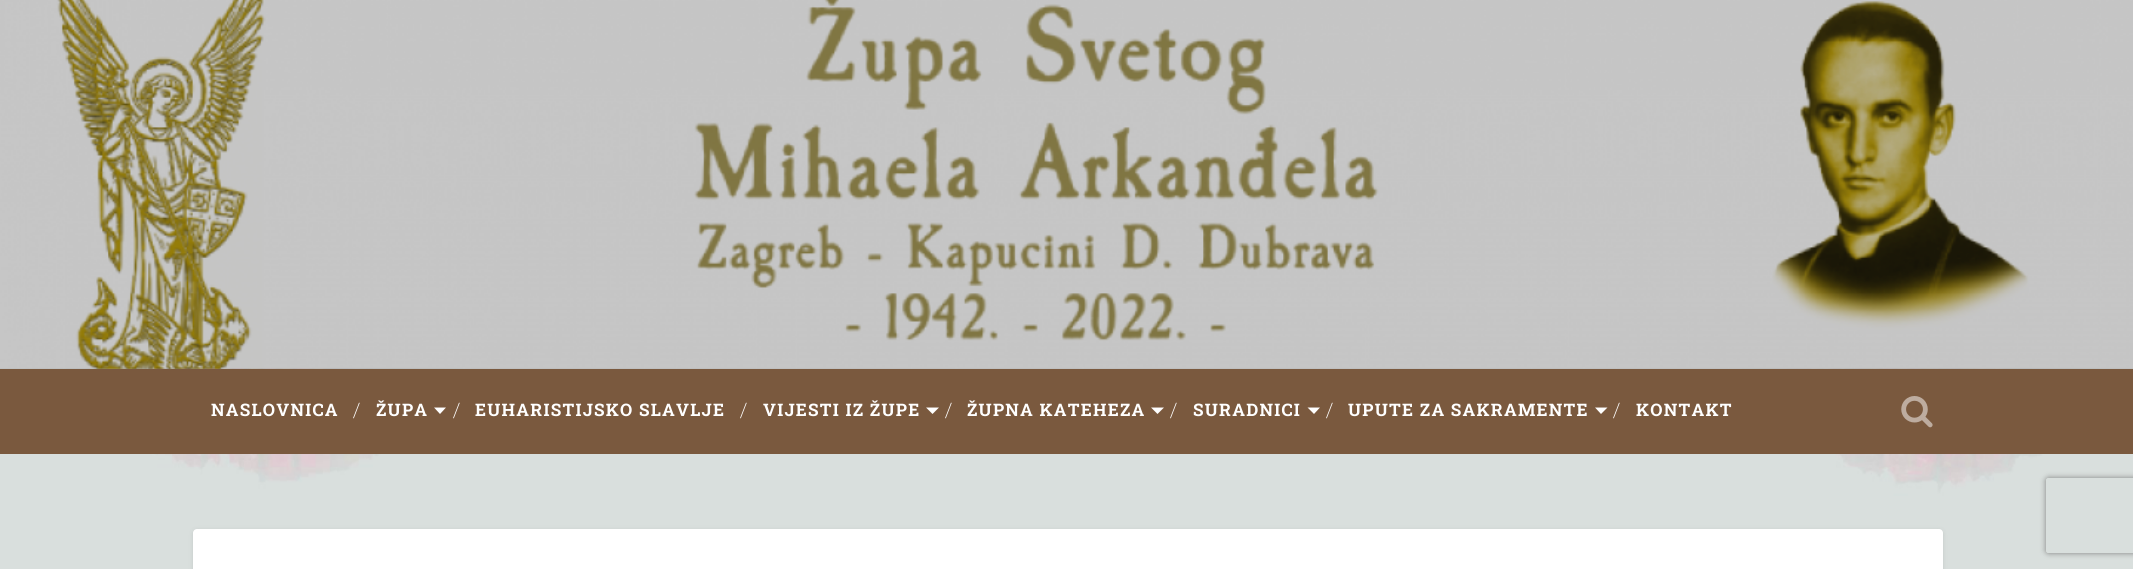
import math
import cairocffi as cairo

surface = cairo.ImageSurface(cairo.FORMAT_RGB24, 2133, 569)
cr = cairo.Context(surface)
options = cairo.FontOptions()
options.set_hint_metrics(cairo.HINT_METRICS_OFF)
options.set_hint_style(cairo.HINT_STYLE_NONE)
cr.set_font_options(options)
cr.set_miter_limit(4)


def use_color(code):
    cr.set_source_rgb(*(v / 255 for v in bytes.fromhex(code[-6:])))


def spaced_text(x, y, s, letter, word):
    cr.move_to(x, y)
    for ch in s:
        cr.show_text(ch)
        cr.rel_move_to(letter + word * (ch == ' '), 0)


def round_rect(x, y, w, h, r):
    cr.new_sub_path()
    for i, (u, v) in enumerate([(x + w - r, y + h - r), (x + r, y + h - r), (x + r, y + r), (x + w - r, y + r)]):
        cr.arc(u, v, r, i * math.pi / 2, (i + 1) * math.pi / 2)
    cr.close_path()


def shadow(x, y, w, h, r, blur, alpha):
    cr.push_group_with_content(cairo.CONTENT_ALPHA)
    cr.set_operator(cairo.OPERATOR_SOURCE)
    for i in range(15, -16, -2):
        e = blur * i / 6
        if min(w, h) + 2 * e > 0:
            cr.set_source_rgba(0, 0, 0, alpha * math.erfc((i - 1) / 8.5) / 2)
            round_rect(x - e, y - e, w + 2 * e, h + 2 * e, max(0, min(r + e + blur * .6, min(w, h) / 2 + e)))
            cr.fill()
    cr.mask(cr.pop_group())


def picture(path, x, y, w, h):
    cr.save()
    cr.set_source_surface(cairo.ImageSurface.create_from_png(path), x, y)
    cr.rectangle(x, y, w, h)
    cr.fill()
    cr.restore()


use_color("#ffffff")
cr.paint()
picture("img1.png", 0, 368, 2133, 201)
picture("img2.png", 0, 0, 2133, 369)
cr.set_source_rgba(0.114, 0.114, 0.114, 0.25)
cr.rectangle(0, 0, 2133, 369)
cr.fill()
use_color("#7a593e")
cr.rectangle(0, 369, 2133, 85)
cr.fill()
cr.select_font_face("Roboto Slab", cairo.FONT_SLANT_NORMAL, cairo.FONT_WEIGHT_BOLD)
cr.set_font_size(17.25)
use_color("#ffffff")
spaced_text(211, 416, "NASLOVNICA", 1.25, 0)
cr.select_font_face("Roboto Slab ExtraLight")
cr.set_font_size(20)
cr.move_to(353, 417)
cr.show_text("/")
cr.select_font_face("Roboto Slab", cairo.FONT_SLANT_NORMAL, cairo.FONT_WEIGHT_BOLD)
cr.set_font_size(17.25)
spaced_text(376, 416, "ŽUPA", 1.25, 0)
cr.new_path()
cr.move_to(434, 407.5)
cr.line_to(446, 407.5)
cr.line_to(440, 414)
cr.close_path()
cr.fill()
cr.select_font_face("Roboto Slab ExtraLight")
cr.set_font_size(20)
cr.move_to(453, 417)
cr.show_text("/")
cr.select_font_face("Roboto Slab", cairo.FONT_SLANT_NORMAL, cairo.FONT_WEIGHT_BOLD)
cr.set_font_size(17.25)
spaced_text(475, 416, "EUHARISTIJSKO SLAVLJE", 1.25, 0)
cr.select_font_face("Roboto Slab ExtraLight")
cr.set_font_size(20)
cr.move_to(740, 417)
cr.show_text("/")
cr.select_font_face("Roboto Slab", cairo.FONT_SLANT_NORMAL, cairo.FONT_WEIGHT_BOLD)
cr.set_font_size(17.25)
spaced_text(763, 416, "VIJESTI IZ ŽUPE", 1.25, 0)
cr.new_path()
cr.move_to(926, 407.5)
cr.line_to(939, 407.5)
cr.line_to(932.5, 414)
cr.close_path()
cr.fill()
cr.select_font_face("Roboto Slab ExtraLight")
cr.set_font_size(20)
cr.move_to(945, 417)
cr.show_text("/")
cr.select_font_face("Roboto Slab", cairo.FONT_SLANT_NORMAL, cairo.FONT_WEIGHT_BOLD)
cr.set_font_size(17.25)
spaced_text(967, 416, "ŽUPNA KATEHEZA", 1.25, 0)
cr.new_path()
cr.move_to(1151, 407.5)
cr.line_to(1164, 407.5)
cr.line_to(1157.5, 414)
cr.close_path()
cr.fill()
cr.select_font_face("Roboto Slab ExtraLight")
cr.set_font_size(20)
cr.move_to(1170, 417)
cr.show_text("/")
cr.select_font_face("Roboto Slab", cairo.FONT_SLANT_NORMAL, cairo.FONT_WEIGHT_BOLD)
cr.set_font_size(17.25)
spaced_text(1193, 416, "SURADNICI", 1.25, 0)
cr.new_path()
cr.move_to(1307.5, 407.5)
cr.line_to(1320, 407.5)
cr.line_to(1314, 414)
cr.close_path()
cr.fill()
cr.select_font_face("Roboto Slab ExtraLight")
cr.set_font_size(20)
cr.move_to(1326, 417)
cr.show_text("/")
cr.select_font_face("Roboto Slab", cairo.FONT_SLANT_NORMAL, cairo.FONT_WEIGHT_BOLD)
cr.set_font_size(17.25)
spaced_text(1348, 416, "UPUTE ZA SAKRAMENTE", 1.25, 0)
cr.new_path()
cr.move_to(1595, 407.5)
cr.line_to(1607.5, 407.5)
cr.line_to(1601, 414)
cr.close_path()
cr.fill()
cr.select_font_face("Roboto Slab ExtraLight")
cr.set_font_size(20)
cr.move_to(1613, 417)
cr.show_text("/")
cr.select_font_face("Roboto Slab", cairo.FONT_SLANT_NORMAL, cairo.FONT_WEIGHT_BOLD)
cr.set_font_size(17.25)
spaced_text(1636, 416, "KONTAKT", 1.25, 0)
picture("img3.png", 1901, 396, 32, 32)
use_color("#000000")
shadow(193, 530, 1750, 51, 4, 2.5, 0.1)
use_color("#ffffff")
round_rect(193, 529, 1750, 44, 4)
cr.fill()
cr.save()
cr.set_fill_rule(cairo.FILL_RULE_EVEN_ODD)
cr.new_path()
cr.move_to(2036, 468)
cr.line_to(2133, 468)
cr.line_to(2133, 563)
cr.line_to(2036, 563)
cr.close_path()
cr.move_to(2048.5, 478)
cr.line_to(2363.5, 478)
cr.curve_to(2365, 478, 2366, 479, 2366, 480.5)
cr.line_to(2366, 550.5)
cr.curve_to(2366, 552, 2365, 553, 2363.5, 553)
cr.line_to(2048.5, 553)
cr.curve_to(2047, 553, 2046, 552, 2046, 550.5)
cr.line_to(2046, 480.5)
cr.curve_to(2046, 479, 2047, 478, 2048.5, 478)
cr.close_path()
cr.clip()
use_color("#808080")
shadow(2046, 478, 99, 75, 2.5, 3, 1)
cr.restore()
surface.write_to_png("result.png")
